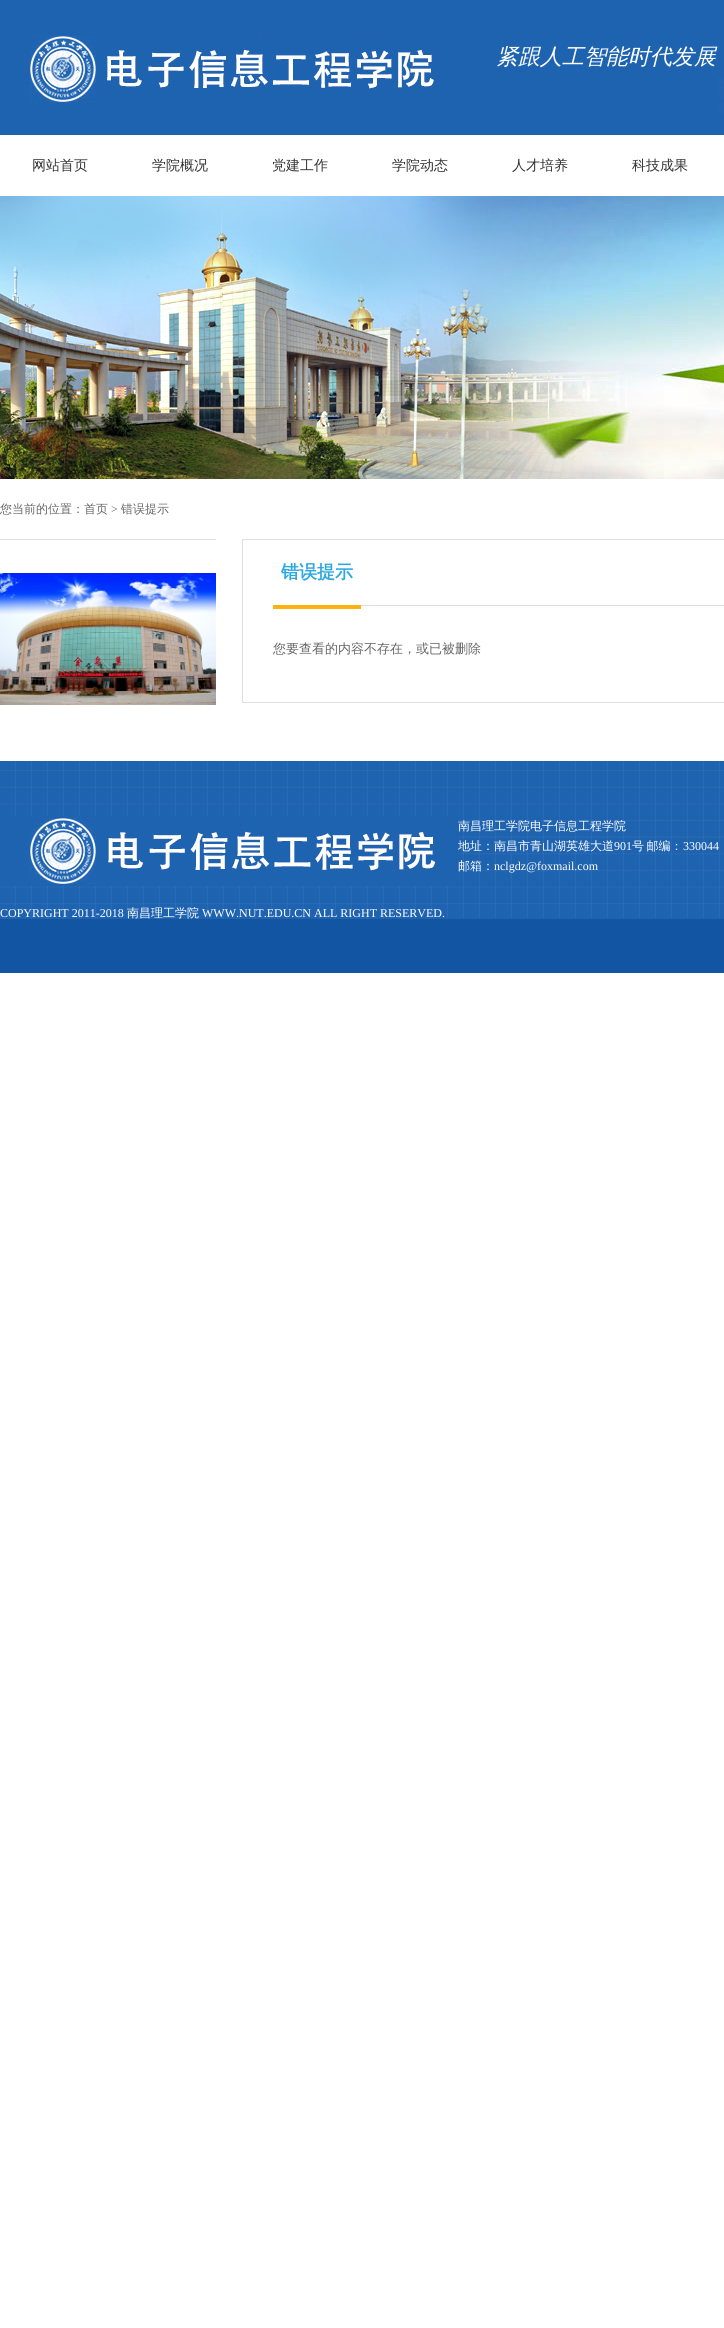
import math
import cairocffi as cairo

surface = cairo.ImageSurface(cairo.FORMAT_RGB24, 724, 2328)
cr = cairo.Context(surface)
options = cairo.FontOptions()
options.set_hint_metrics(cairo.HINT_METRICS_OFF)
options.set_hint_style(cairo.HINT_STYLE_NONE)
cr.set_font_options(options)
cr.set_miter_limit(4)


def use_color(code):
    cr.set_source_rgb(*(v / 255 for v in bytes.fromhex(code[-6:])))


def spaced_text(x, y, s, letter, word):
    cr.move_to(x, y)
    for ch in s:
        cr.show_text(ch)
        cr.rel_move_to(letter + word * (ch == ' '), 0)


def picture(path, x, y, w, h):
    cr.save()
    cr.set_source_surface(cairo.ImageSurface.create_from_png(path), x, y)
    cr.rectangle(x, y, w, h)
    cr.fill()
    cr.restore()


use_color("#ffffff")
cr.paint()
use_color("#1e63b0")
cr.rectangle(0, 0, 724, 135)
cr.fill()
picture("img1.png", 718, 78, 6, 36)
picture("img2.png", 24, 34, 416, 70)
cr.select_font_face("WenQuanYi Zen Hei Medium", cairo.FONT_SLANT_ITALIC)
cr.set_font_size(22)
use_color("#ffffff")
spaced_text(496, 64, "紧跟人工智能时代发展", 0, -1)
cr.select_font_face("WenQuanYi Zen Hei Medium")
cr.set_font_size(14)
use_color("#333333")
cr.move_to(32, 170)
cr.show_text("网站首页")
cr.move_to(152, 170)
cr.show_text("学院概况")
cr.move_to(272, 170)
cr.show_text("党建工作")
cr.move_to(392, 170)
cr.show_text("学院动态")
cr.move_to(512, 170)
cr.show_text("人才培养")
cr.move_to(632, 170)
cr.show_text("科技成果")
picture("img3.png", 0, 196, 724, 283)
cr.set_font_size(12)
use_color("#666666")
cr.move_to(0, 513)
cr.show_text("您当前的位置：首页")
cr.select_font_face("Liberation Serif")
cr.move_to(111, 513)
cr.show_text(">")
cr.select_font_face("WenQuanYi Zen Hei Medium")
cr.move_to(121, 513)
cr.show_text("错误提示")
use_color("#dfdfdf")
cr.rectangle(0, 539, 216, 1)
cr.fill()
picture("img4.png", 0, 573, 216, 132)
cr.rectangle(242.5, 539.5, 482, 163)
cr.set_line_width(1)
cr.stroke()
cr.rectangle(361, 605, 363, 1)
cr.fill()
use_color("#ffb10f")
cr.rectangle(273, 605, 88, 4)
cr.fill()
cr.select_font_face("WenQuanYi Zen Hei", cairo.FONT_SLANT_NORMAL, cairo.FONT_WEIGHT_BOLD)
cr.set_font_size(18)
use_color("#2ea9df")
cr.move_to(281, 578)
cr.show_text("错误提示")
cr.select_font_face("WenQuanYi Zen Hei Medium")
cr.set_font_size(13)
use_color("#666666")
cr.move_to(273, 653)
cr.show_text("您要查看的内容不存在，或已被删除")
picture("img5.png", 0, 761, 724, 212)
picture("img6.png", 0, 816, 458, 70)
cr.set_font_size(12)
use_color("#ffffff")
cr.move_to(458, 830)
cr.show_text("南昌理工学院电子信息工程学院")
cr.move_to(458, 850)
cr.show_text("地址：南昌市青山湖英雄大道")
cr.select_font_face("Liberation Serif")
cr.move_to(614, 850)
cr.show_text("901")
cr.select_font_face("WenQuanYi Zen Hei Medium")
spaced_text(632, 850, "号 邮编：", 0, -1)
cr.select_font_face("Liberation Serif")
cr.move_to(683, 850)
cr.show_text("330044")
cr.select_font_face("WenQuanYi Zen Hei Medium")
cr.move_to(458, 870)
cr.show_text("邮箱：")
cr.select_font_face("Liberation Serif")
cr.move_to(494, 870)
cr.show_text("nclgdz@foxmail.com")
cr.move_to(0, 917)
cr.show_text("COPYRIGHT 2011-2018")
cr.select_font_face("WenQuanYi Zen Hei Medium")
cr.move_to(127, 917)
cr.show_text("南昌理工学院")
cr.select_font_face("Liberation Serif")
cr.move_to(202, 917)
cr.show_text("WWW.NUT.EDU.CN ALL RIGHT RESERVED.")
surface.write_to_png("result.png")
